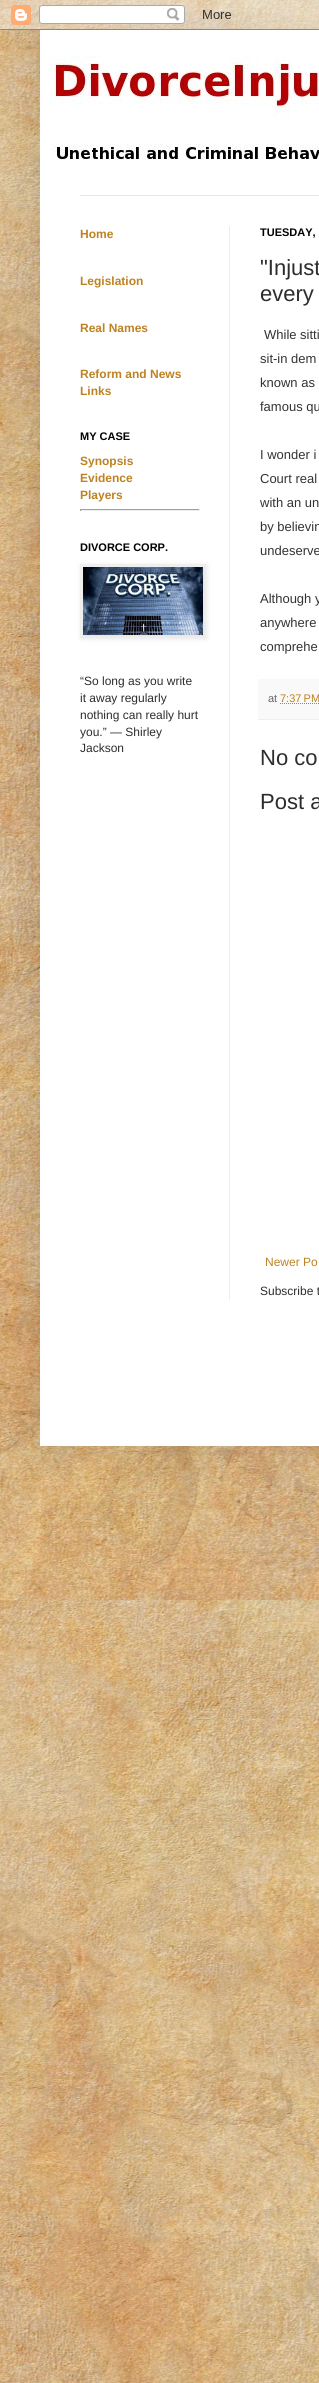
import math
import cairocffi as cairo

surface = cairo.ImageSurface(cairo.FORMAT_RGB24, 319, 2383)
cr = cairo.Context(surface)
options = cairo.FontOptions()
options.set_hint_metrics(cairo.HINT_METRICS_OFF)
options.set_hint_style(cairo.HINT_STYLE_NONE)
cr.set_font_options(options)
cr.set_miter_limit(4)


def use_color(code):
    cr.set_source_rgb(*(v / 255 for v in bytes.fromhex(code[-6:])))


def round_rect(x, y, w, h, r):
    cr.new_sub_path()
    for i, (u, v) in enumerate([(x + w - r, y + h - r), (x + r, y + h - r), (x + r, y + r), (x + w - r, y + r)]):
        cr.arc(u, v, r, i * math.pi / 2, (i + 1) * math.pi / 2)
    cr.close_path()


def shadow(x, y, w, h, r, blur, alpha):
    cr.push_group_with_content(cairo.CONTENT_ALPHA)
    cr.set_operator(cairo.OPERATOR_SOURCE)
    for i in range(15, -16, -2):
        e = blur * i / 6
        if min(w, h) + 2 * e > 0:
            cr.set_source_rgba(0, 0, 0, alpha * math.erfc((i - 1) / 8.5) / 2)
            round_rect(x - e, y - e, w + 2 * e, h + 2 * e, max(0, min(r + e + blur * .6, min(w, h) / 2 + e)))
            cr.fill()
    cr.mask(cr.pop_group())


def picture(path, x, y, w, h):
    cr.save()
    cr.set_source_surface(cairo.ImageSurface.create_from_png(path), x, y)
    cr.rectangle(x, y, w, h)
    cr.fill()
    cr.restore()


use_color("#ffffff")
cr.paint()
picture("img1.png", 0, 400, 319, 1983)
picture("img2.png", 0, 0, 319, 400)
use_color("#000000")
shadow(40, 30, 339, 1416, 0, 20, 0.15)
picture("img3.png", 0, 0, 319, 30)
use_color("#ffffff")
cr.rectangle(40, 30, 279, 1416)
cr.fill()
picture("img4.png", 50, 55, 269, 105)
use_color("#e9e9e9")
cr.rectangle(80, 195, 239, 1)
cr.fill()
use_color("#eeeeee")
cr.rectangle(229, 226, 1, 1074)
cr.fill()
cr.select_font_face("Liberation Sans", cairo.FONT_SLANT_NORMAL, cairo.FONT_WEIGHT_BOLD)
cr.set_font_size(12)
use_color("#bd8222")
cr.move_to(80, 238)
cr.show_text("Home")
cr.move_to(80, 285)
cr.show_text("Legislation")
cr.move_to(80, 332)
cr.show_text("Real Names")
cr.move_to(80, 378)
cr.show_text("Reform and News")
cr.move_to(80, 395)
cr.show_text("Links")
cr.set_font_size(11)
use_color("#000000")
cr.move_to(80, 440)
cr.show_text("MY CASE")
cr.set_font_size(12)
use_color("#bd8222")
cr.move_to(80, 465)
cr.show_text("Synopsis")
cr.move_to(80, 482)
cr.show_text("Evidence")
cr.move_to(80, 499)
cr.show_text("Players")
use_color("#9f9f9f")
cr.rectangle(80, 509, 120, 1)
cr.fill()
use_color("#eeeeee")
cr.rectangle(199, 509, 1, 2)
cr.fill()
cr.rectangle(80, 510, 120, 1)
cr.fill()
use_color("#9f9f9f")
cr.rectangle(80, 509, 1, 2)
cr.fill()
cr.set_font_size(11)
use_color("#000000")
cr.move_to(80, 551)
cr.show_text("DIVORCE CORP.")
use_color("#000000")
shadow(81, 565, 126, 74, 0, 2.5, 0.1)
cr.rectangle(80.5, 564.5, 125, 73)
use_color("#eeeeee")
cr.set_line_width(1)
cr.stroke()
picture("img5.png", 83, 567, 120, 68)
cr.select_font_face("Liberation Sans")
cr.set_font_size(12)
use_color("#2d2d2d")
cr.move_to(80, 685)
cr.show_text("“So long as you write")
cr.move_to(80, 702)
cr.show_text("it away regularly")
cr.move_to(80, 719)
cr.show_text("nothing can really hurt")
cr.move_to(80, 736)
cr.show_text("you.” ― Shirley")
cr.move_to(80, 752)
cr.show_text("Jackson")
cr.select_font_face("Liberation Sans", cairo.FONT_SLANT_NORMAL, cairo.FONT_WEIGHT_BOLD)
cr.set_font_size(11)
use_color("#000000")
cr.move_to(260, 236)
cr.show_text("TUESDAY,")
cr.select_font_face("Liberation Sans")
cr.set_font_size(22)
use_color("#2d2d2d")
cr.move_to(260, 275)
cr.show_text("\"Injust")
cr.move_to(260, 301)
cr.show_text("every")
cr.set_font_size(13)
use_color("#333333")
cr.move_to(264, 339)
cr.show_text("While sitti")
cr.move_to(260, 363)
cr.show_text("sit-in dem")
cr.move_to(260, 387)
cr.show_text("known as")
cr.move_to(260, 411)
cr.show_text("famous qu")
cr.move_to(260, 459)
cr.show_text("I wonder i")
cr.move_to(260, 483)
cr.show_text("Court real")
cr.move_to(260, 507)
cr.show_text("with an un")
cr.move_to(260, 531)
cr.show_text("by believin")
cr.move_to(260, 555)
cr.show_text("undeserve")
cr.move_to(260, 603)
cr.show_text("Although y")
cr.move_to(260, 627)
cr.show_text("anywhere")
cr.move_to(260, 651)
cr.show_text("comprehe")
use_color("#f9f9f9")
cr.rectangle(258, 679, 61, 40)
cr.fill()
use_color("#eeeeee")
cr.rectangle(258, 719, 61, 1)
cr.fill()
cr.set_font_size(11)
use_color("#676767")
cr.move_to(268, 702)
cr.show_text("at")
use_color("#bd8222")
cr.move_to(280, 702)
cr.show_text("7:37 PM")
cr.new_path()
cr.move_to(280, 703.5)
cr.line_to(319.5, 703.5)
cr.set_dash([1, 1])
cr.stroke()
cr.set_font_size(22)
use_color("#2d2d2d")
cr.move_to(260, 765)
cr.show_text("No co")
cr.move_to(260, 809)
cr.show_text("Post a")
cr.set_font_size(12)
use_color("#bd8222")
cr.move_to(265, 1266)
cr.show_text("Newer Po")
use_color("#2d2d2d")
cr.move_to(260, 1295)
cr.show_text("Subscribe t")
surface.write_to_png("result.png")
